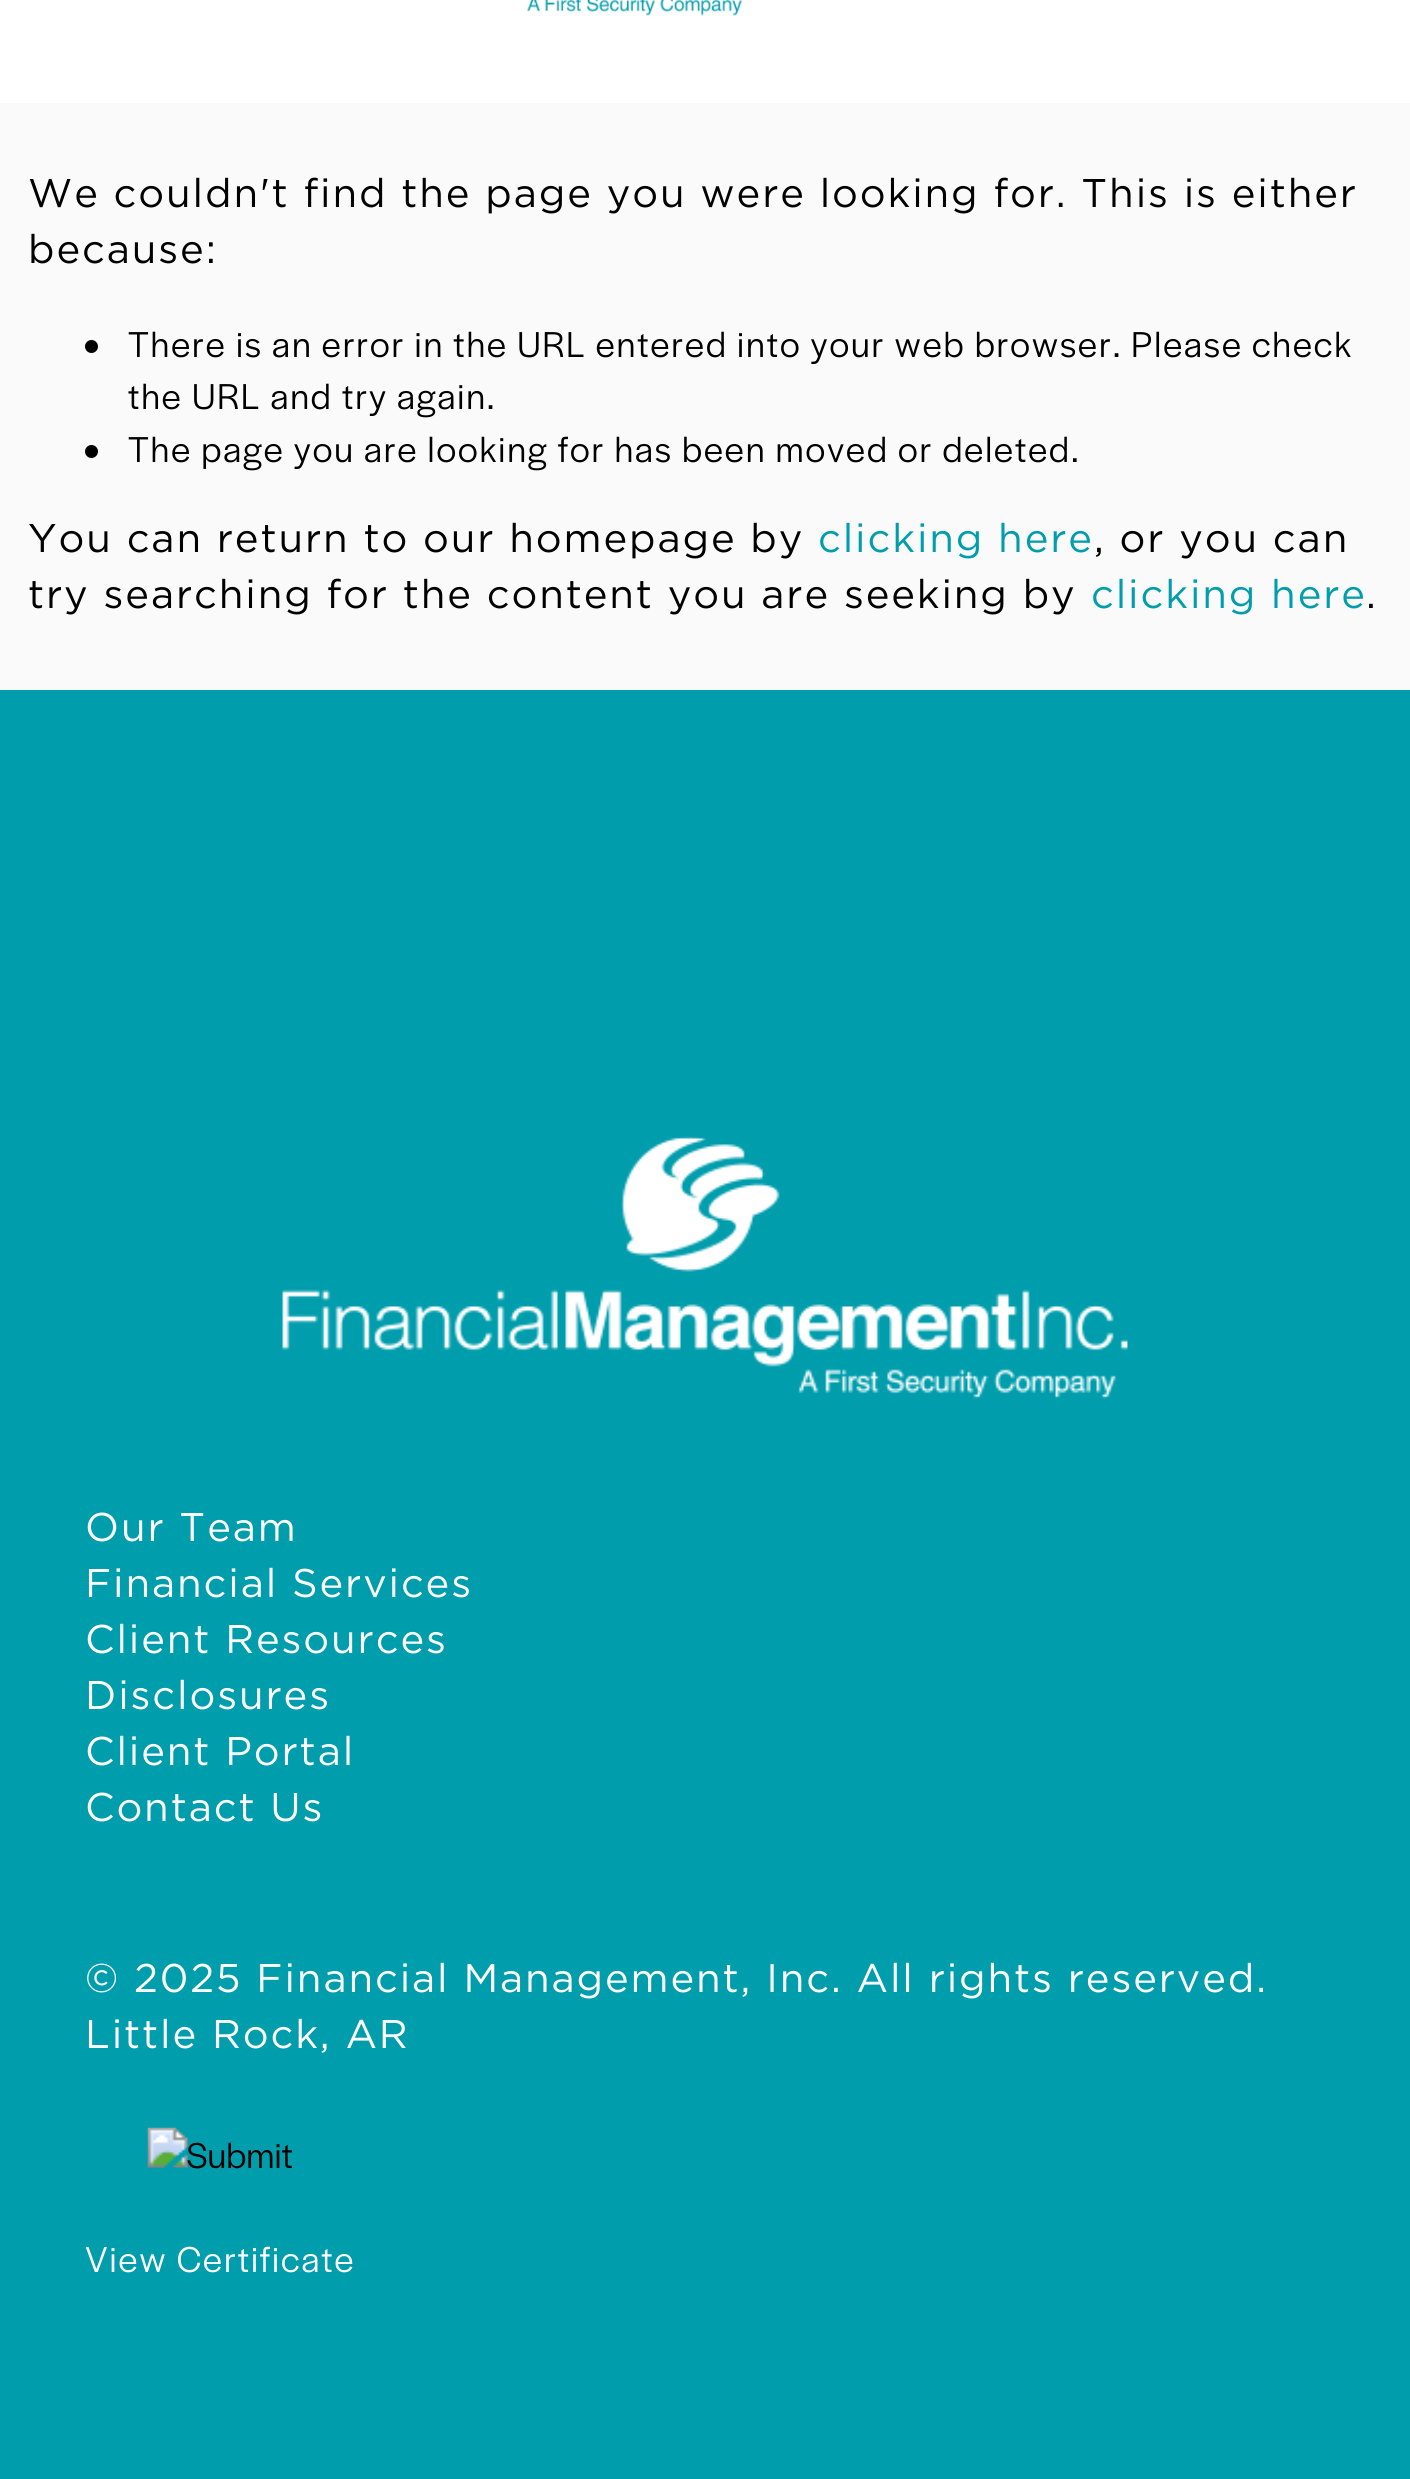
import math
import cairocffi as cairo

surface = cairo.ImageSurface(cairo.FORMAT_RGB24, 1410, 2479)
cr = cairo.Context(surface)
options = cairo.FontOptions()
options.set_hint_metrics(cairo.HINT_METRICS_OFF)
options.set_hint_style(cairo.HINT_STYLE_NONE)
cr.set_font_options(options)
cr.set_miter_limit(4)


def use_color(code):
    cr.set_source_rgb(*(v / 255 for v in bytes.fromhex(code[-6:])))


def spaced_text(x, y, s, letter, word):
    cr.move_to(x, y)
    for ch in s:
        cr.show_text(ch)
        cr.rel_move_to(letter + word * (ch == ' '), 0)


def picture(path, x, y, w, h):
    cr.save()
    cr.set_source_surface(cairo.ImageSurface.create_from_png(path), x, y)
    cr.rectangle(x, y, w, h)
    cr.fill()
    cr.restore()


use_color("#fafafa")
cr.paint()
use_color("#ffffff")
cr.rectangle(0, 0, 1410, 103)
cr.fill()
picture("img1.png", 527, 0, 216, 16)
cr.select_font_face("Gotham")
cr.set_font_size(40)
use_color("#000000")
spaced_text(28, 207, "We couldn't find the page you were looking for. This is either", 1.88, 0)
spaced_text(28, 263, "because:", 1.88, 0)
cr.new_path()
cr.arc(91.5, 346.5, 6.5, 0, 2 * math.pi)
cr.fill()
cr.select_font_face("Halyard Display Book")
cr.set_font_size(37.5)
spaced_text(128, 357, "There is an error in the URL entered into your web browser. Please check", 1.88, 0)
spaced_text(128, 409, "the URL and try again.", 1.88, 0)
cr.new_path()
cr.arc(91.5, 451.5, 6.5, 0, 2 * math.pi)
cr.fill()
spaced_text(128, 462, "The page you are looking for has been moved or deleted.", 1.88, 0)
cr.select_font_face("Gotham")
cr.set_font_size(40)
spaced_text(28, 552, "You can return to our homepage by", 1.88, 0)
use_color("#009dad")
spaced_text(818, 552, "clicking here", 1.88, 0)
use_color("#000000")
spaced_text(1094, 552, ", or you can", 1.88, 0)
spaced_text(28, 608, "try searching for the content you are seeking by", 1.88, 0)
use_color("#009dad")
spaced_text(1091, 608, "clicking here", 1.88, 0)
use_color("#000000")
spaced_text(1366, 608, ".", 1.88, 0)
use_color("#009dad")
cr.rectangle(0, 690, 1410, 1789)
cr.fill()
picture("img2.png", 282, 1136, 846, 263)
use_color("#ffffff")
spaced_text(85, 1541, "Our Team", 1.88, 0)
spaced_text(85, 1597, "Financial Services", 1.88, 0)
spaced_text(85, 1653, "Client Resources", 1.88, 0)
spaced_text(85, 1709, "Disclosures", 1.88, 0)
spaced_text(85, 1765, "Client Portal", 1.88, 0)
spaced_text(85, 1821, "Contact Us", 1.88, 0)
spaced_text(85, 1992, "© 2025 Financial Management, Inc. All rights reserved.", 1.88, 0)
spaced_text(85, 2048, "Little Rock, AR", 1.88, 0)
picture("img3.png", 147, 2127, 145, 42)
cr.select_font_face("Halyard Display Book")
cr.set_font_size(37.5)
spaced_text(85, 2272, "View Certificate", 1.88, 0)
surface.write_to_png("result.png")
